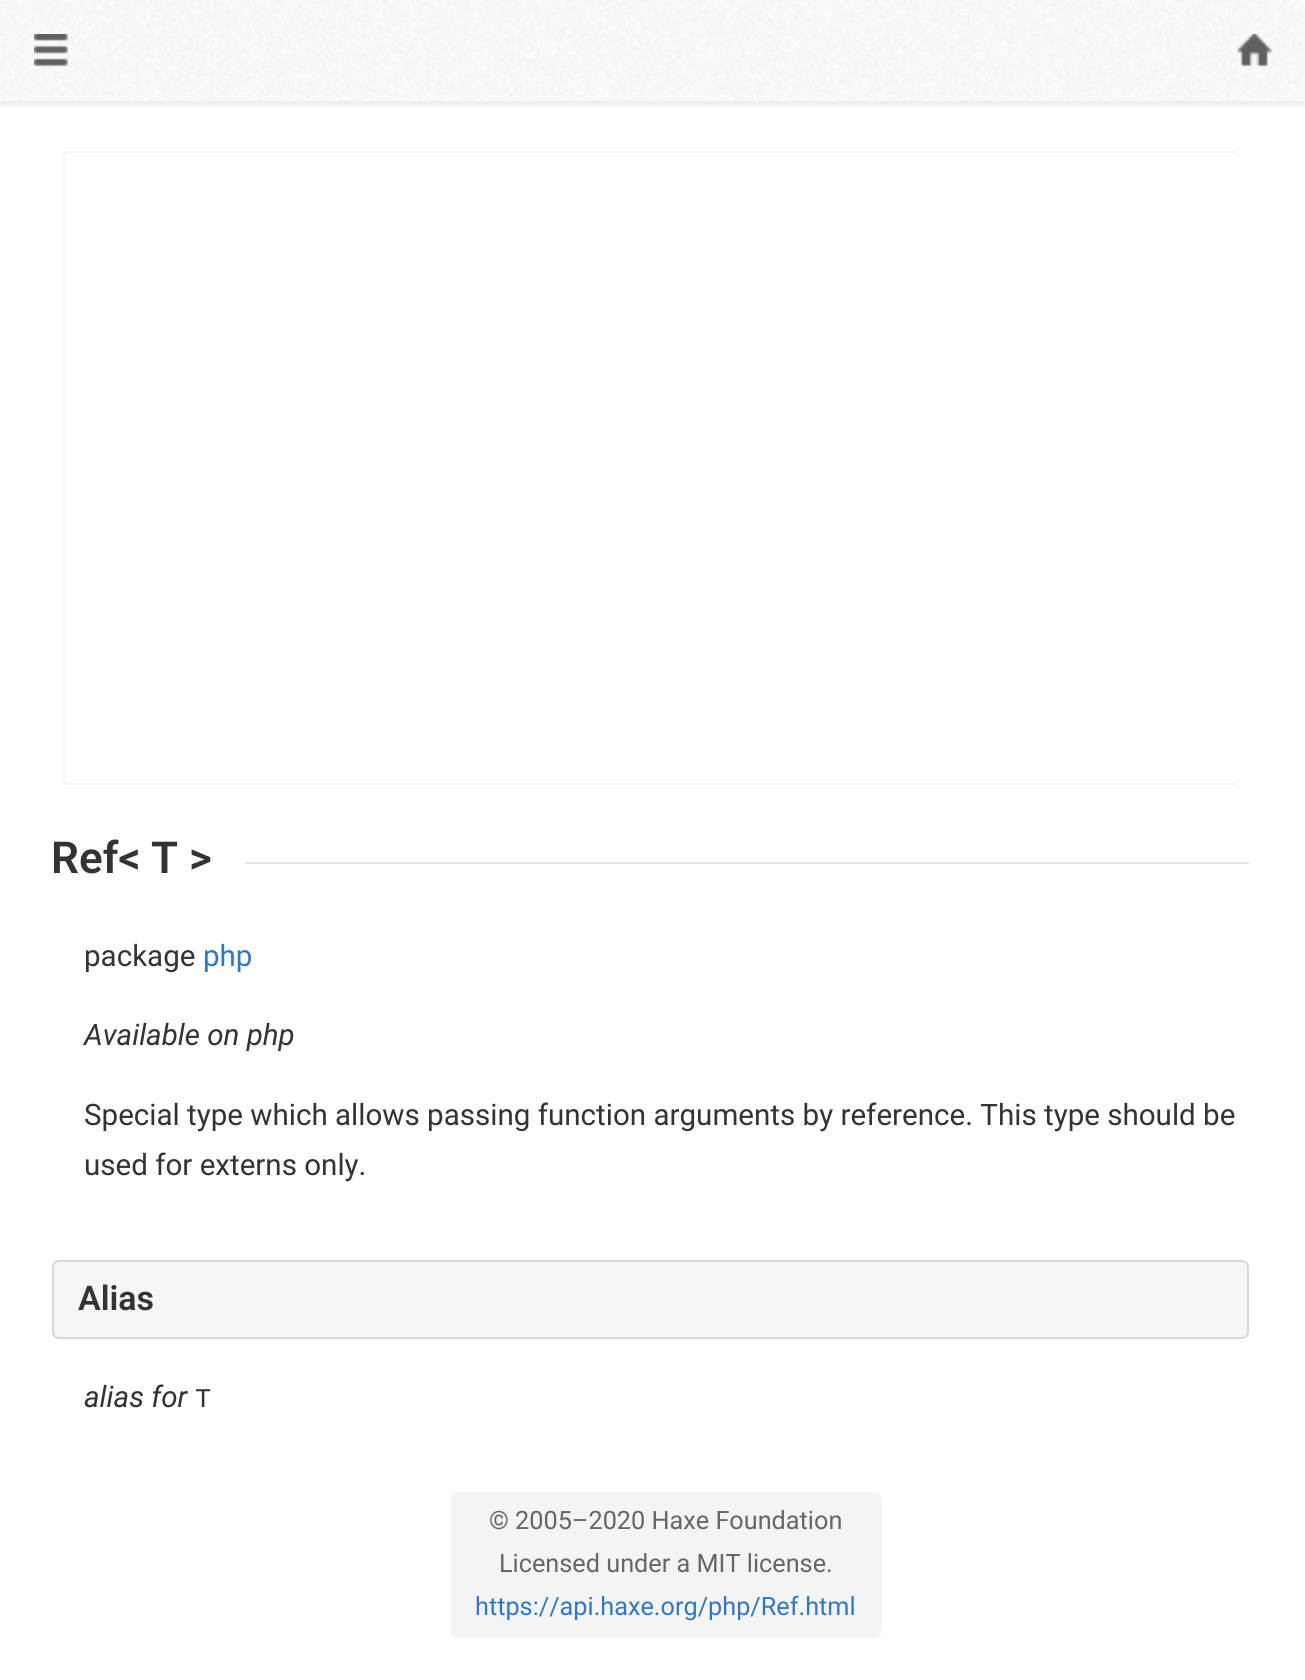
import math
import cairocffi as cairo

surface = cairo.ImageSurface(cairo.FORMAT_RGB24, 1305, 1680)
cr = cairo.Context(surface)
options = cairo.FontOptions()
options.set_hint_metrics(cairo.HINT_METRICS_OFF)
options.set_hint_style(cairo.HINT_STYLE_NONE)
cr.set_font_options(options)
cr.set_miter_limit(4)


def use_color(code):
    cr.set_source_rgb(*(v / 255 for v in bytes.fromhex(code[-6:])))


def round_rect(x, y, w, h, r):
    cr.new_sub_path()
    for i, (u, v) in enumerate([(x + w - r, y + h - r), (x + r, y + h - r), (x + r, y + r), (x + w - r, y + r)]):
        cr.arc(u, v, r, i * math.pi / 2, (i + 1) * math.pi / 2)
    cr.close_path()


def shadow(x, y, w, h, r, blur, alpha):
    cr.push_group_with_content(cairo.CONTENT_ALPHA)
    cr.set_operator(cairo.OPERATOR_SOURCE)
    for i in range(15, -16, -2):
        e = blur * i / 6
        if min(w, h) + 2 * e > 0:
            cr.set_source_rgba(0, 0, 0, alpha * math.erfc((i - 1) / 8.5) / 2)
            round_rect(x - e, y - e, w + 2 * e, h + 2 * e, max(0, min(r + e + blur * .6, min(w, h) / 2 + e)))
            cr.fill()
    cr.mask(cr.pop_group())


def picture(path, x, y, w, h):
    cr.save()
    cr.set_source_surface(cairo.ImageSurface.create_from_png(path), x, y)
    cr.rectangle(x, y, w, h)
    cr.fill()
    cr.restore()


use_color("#ffffff")
cr.paint()
cr.save()
cr.rectangle(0, 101, 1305, 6)
cr.clip()
use_color("#000000")
shadow(0, 5, 1305, 101, 0, 2, 0.07)
cr.restore()
picture("img1.png", 0, 0, 1305, 101)
picture("img2.png", 34, 34, 34, 33)
picture("img3.png", 1236, 34, 36, 33)
use_color("#f5f5f5")
cr.rectangle(63, 151, 1175, 634)
cr.fill()
use_color("#ffffff")
cr.rectangle(65, 153, 1173, 630)
cr.fill()
cr.select_font_face("Roboto SemiBold")
cr.set_font_size(44)
use_color("#333333")
cr.move_to(51, 873)
cr.show_text("Ref<")
cr.move_to(151, 873)
cr.show_text("T")
cr.move_to(189, 873)
cr.show_text(">")
use_color("#e5e5e5")
cr.rectangle(245, 862, 1004, 2)
cr.fill()
cr.select_font_face("Roboto")
cr.set_font_size(29.55)
use_color("#333333")
cr.move_to(84, 966)
cr.show_text("package")
use_color("#3377c0")
cr.move_to(203, 966)
cr.show_text("php")
cr.select_font_face("Roboto", cairo.FONT_SLANT_ITALIC)
use_color("#333333")
cr.move_to(84, 1045)
cr.show_text("Available on php")
cr.select_font_face("Roboto")
cr.move_to(84, 1125)
cr.show_text("Special type which allows passing function arguments by reference. This type should be")
cr.move_to(84, 1175)
cr.show_text("used for externs only.")
use_color("#f5f5f5")
round_rect(53, 1261, 1195, 77, 6)
cr.fill_preserve()
use_color("#d8d8d8")
cr.stroke()
cr.select_font_face("Roboto SemiBold")
cr.set_font_size(34)
use_color("#333333")
cr.move_to(78, 1310)
cr.show_text("Alias")
cr.select_font_face("Roboto", cairo.FONT_SLANT_ITALIC)
cr.set_font_size(29.55)
cr.move_to(84, 1407)
cr.show_text("alias for")
cr.select_font_face("Liberation Mono")
cr.set_font_size(27)
cr.move_to(195, 1407)
cr.show_text("T")
use_color("#f4f4f4")
round_rect(450, 1492, 432, 146, 7)
cr.fill()
cr.select_font_face("Roboto")
cr.set_font_size(25.25)
use_color("#666666")
cr.move_to(489, 1529)
cr.show_text("© 2005–2020 Haxe Foundation")
cr.move_to(499, 1572)
cr.show_text("Licensed under a MIT license.")
use_color("#3377c0")
cr.move_to(475, 1615)
cr.show_text("https://api.haxe.org/php/Ref.html")
surface.write_to_png("result.png")
